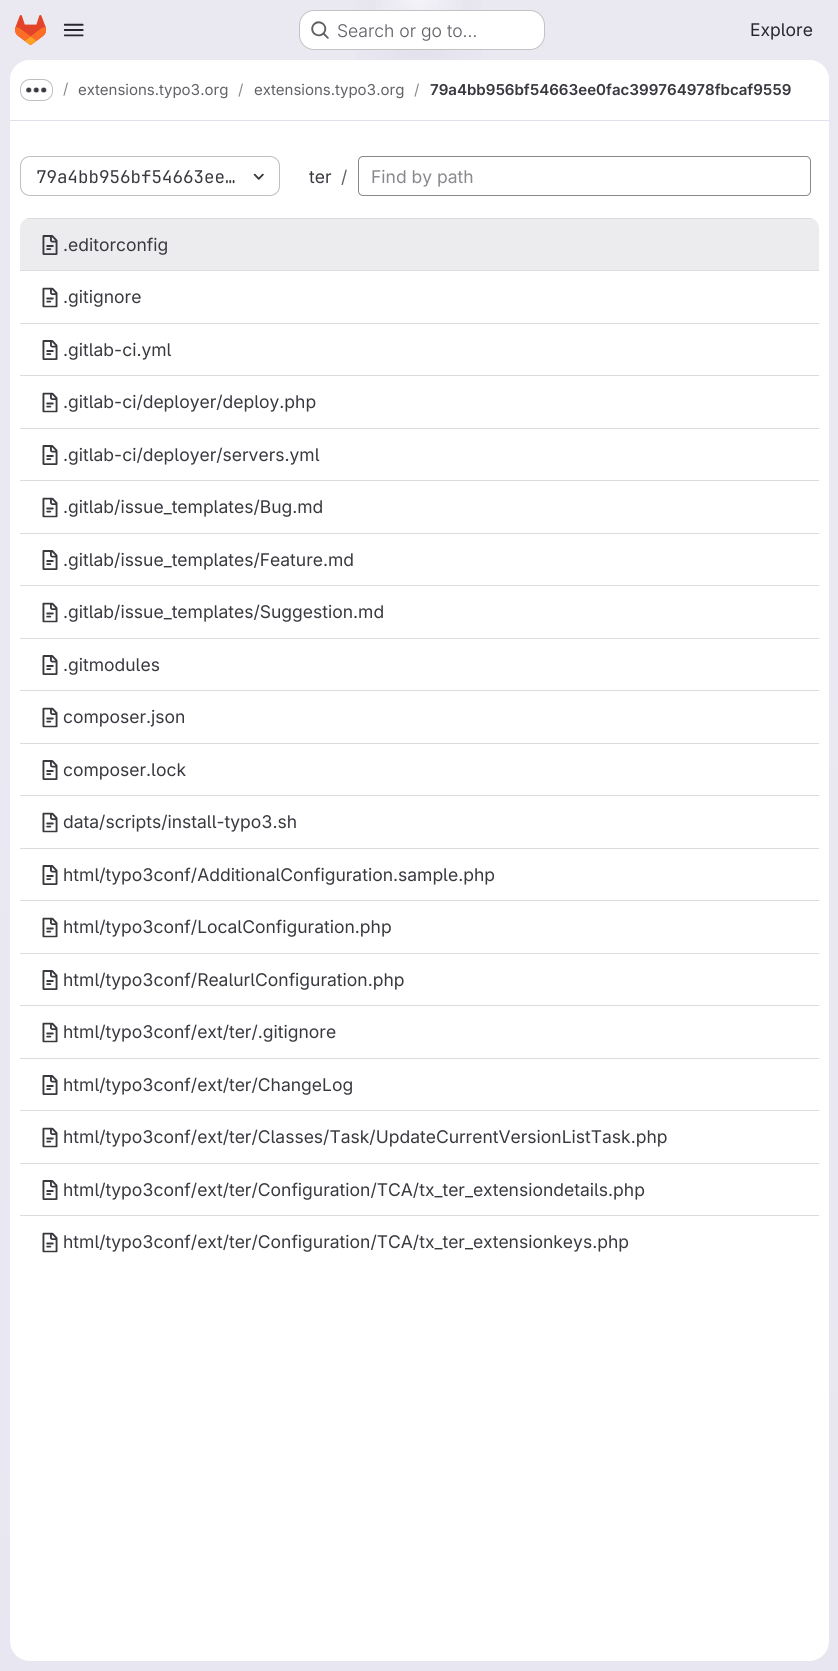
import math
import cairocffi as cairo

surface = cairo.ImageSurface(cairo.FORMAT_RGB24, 838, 1671)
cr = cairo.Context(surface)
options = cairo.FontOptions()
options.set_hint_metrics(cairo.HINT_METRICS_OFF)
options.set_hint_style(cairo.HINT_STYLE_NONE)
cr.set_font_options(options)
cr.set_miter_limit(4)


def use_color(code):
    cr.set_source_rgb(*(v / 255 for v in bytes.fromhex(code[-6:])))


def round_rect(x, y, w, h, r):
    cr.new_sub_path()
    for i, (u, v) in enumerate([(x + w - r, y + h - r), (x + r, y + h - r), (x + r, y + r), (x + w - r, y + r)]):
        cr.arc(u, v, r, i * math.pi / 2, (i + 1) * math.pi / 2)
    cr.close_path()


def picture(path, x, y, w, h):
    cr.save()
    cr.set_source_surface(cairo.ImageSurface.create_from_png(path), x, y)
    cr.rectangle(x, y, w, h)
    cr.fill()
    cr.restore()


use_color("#ffffff")
cr.paint()
gradient = cairo.LinearGradient(575, 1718, 264, -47)
gradient.add_color_stop_rgba(0, 0.91, 0.902, 0.941, 1)
gradient.add_color_stop_rgba(0.7, 0.918, 0.914, 0.949, 1)
cr.set_source(gradient)
cr.rectangle(0, 0, 838, 1671)
cr.fill()
gradient = cairo.RadialGradient(0, 0, 0, 0, 0, 1)
gradient.set_matrix(cairo.Matrix(1 / 419, 0, 0, 1 / 1671, -1 * 419 / 419, -1 * 0 / 1671))
gradient.add_color_stop_rgba(0, 0.894, 0.886, 0.929, 1)
gradient.add_color_stop_rgba(0.21, 0.894, 0.886, 0.929, 0)
cr.set_source(gradient)
cr.rectangle(356, 0, 126, 60)
cr.fill()
gradient = cairo.RadialGradient(0, 0, 0, 0, 0, 1)
gradient.set_matrix(cairo.Matrix(1 / 419, 0, 0, 1 / 1671, -1 * 419 / 419, -1 * 0 / 1671))
gradient.add_color_stop_rgba(0, 0.894, 0.886, 0.925, 1)
gradient.add_color_stop_rgba(0.15, 0.894, 0.886, 0.925, 0)
cr.set_source(gradient)
cr.rectangle(393, 6, 52, 52)
cr.fill()
gradient = cairo.RadialGradient(419, 0, 0, 419, 0, 1723)
gradient.add_color_stop_rgba(0, 1, 1, 1, 0.6)
gradient.add_color_stop_rgba(0.03, 1, 1, 1, 0)
cr.set_source(gradient)
cr.rectangle(376, 0, 86, 10)
cr.fill()
picture("img1.png", 15, 15, 31, 30)
picture("img2.png", 63, 23, 21, 14)
use_color("#ffffff")
round_rect(299, 10, 246, 40, 15)
cr.fill()
round_rect(299.5, 10.5, 245, 39, 14.5)
cr.set_source_rgba(0.02, 0.02, 0.024, 0.24)
cr.set_line_width(1)
cr.stroke()
picture("img3.png", 311, 21, 18, 18)
cr.select_font_face("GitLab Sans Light")
cr.set_font_size(17.5)
use_color("#626168")
cr.move_to(337, 37)
cr.show_text("Search or go to…")
cr.select_font_face("GitLab Sans")
use_color("#28272d")
cr.move_to(750, 36)
cr.show_text("Explore")
use_color("#ffffff")
round_rect(10, 60, 819, 1601, 20)
cr.fill()
cr.new_path()
cr.move_to(30, 60)
cr.line_to(809, 60)
cr.curve_to(820, 60, 829, 69, 829, 80)
cr.line_to(829, 121)
cr.line_to(10, 121)
cr.line_to(10, 80)
cr.curve_to(10, 69, 19, 60, 30, 60)
cr.close_path()
cr.fill()
use_color("#e1dfec")
cr.rectangle(10, 120, 819, 1)
cr.fill()
round_rect(20.5, 79.5, 32, 21, 9.5)
use_color("#bfbfc3")
cr.stroke()
picture("img4.png", 26, 87, 21, 6)
cr.set_font_size(15)
use_color("#89888d")
cr.move_to(63, 94)
cr.show_text("/")
use_color("#626168")
cr.move_to(78, 95)
cr.show_text("extensions.typo3.org")
use_color("#89888d")
cr.move_to(238, 95)
cr.show_text("/")
use_color("#626168")
cr.move_to(254, 95)
cr.show_text("extensions.typo3.org")
use_color("#89888d")
cr.move_to(414, 95)
cr.show_text("/")
cr.select_font_face("GitLab Sans SemiBold")
use_color("#3a383f")
cr.move_to(430, 95)
cr.show_text("79a4bb956bf54663ee0fac399764978fbcaf9559")
round_rect(20.5, 156.5, 259, 39, 9.5)
use_color("#bfbfc3")
cr.stroke()
cr.select_font_face("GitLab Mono")
cr.set_font_size(17.5)
use_color("#3a383f")
cr.move_to(36, 183)
cr.show_text("79a4bb956bf54663ee…")
picture("img5.png", 253, 173, 11, 7)
cr.select_font_face("GitLab Sans")
cr.move_to(309, 183)
cr.show_text("ter")
use_color("#626168")
cr.move_to(341, 183)
cr.show_text("/")
round_rect(358.5, 156.5, 452, 39, 4.5)
use_color("#89888d")
cr.stroke()
cr.move_to(371, 183)
cr.show_text("Find by path")
use_color("#ececef")
cr.new_path()
cr.move_to(30, 218)
cr.line_to(809, 218)
cr.curve_to(814.5, 218, 819, 222.5, 819, 228)
cr.line_to(819, 270)
cr.line_to(20, 270)
cr.line_to(20, 228)
cr.curve_to(20, 222.5, 24.5, 218, 30, 218)
cr.close_path()
cr.fill()
cr.save()
round_rect(20, 218, 799, 1050, 10)
cr.clip()
use_color("#dcdcde")
cr.rectangle(20, 218, 799, 1)
cr.fill()
cr.restore()
picture("img6.png", 42, 235, 16, 20)
use_color("#3a383f")
cr.move_to(63, 251)
cr.show_text(".editorconfig")
use_color("#dcdcde")
cr.rectangle(20, 270, 799, 1)
cr.fill()
picture("img7.png", 42, 287, 16, 21)
use_color("#3a383f")
cr.move_to(63, 303)
cr.show_text(".gitignore")
use_color("#dcdcde")
cr.rectangle(20, 323, 799, 1)
cr.fill()
picture("img8.png", 42, 340, 16, 20)
use_color("#3a383f")
cr.move_to(63, 356)
cr.show_text(".gitlab-ci.yml")
use_color("#dcdcde")
cr.rectangle(20, 375, 799, 1)
cr.fill()
picture("img7.png", 42, 392, 16, 21)
use_color("#3a383f")
cr.move_to(63, 408)
cr.show_text(".gitlab-ci/deployer/deploy.php")
use_color("#dcdcde")
cr.rectangle(20, 428, 799, 1)
cr.fill()
picture("img8.png", 42, 445, 16, 20)
use_color("#3a383f")
cr.move_to(63, 461)
cr.show_text(".gitlab-ci/deployer/servers.yml")
use_color("#dcdcde")
cr.rectangle(20, 480, 799, 1)
cr.fill()
picture("img7.png", 42, 497, 16, 21)
use_color("#3a383f")
cr.move_to(63, 513)
cr.show_text(".gitlab/issue_templates/Bug.md")
use_color("#dcdcde")
cr.rectangle(20, 533, 799, 1)
cr.fill()
picture("img8.png", 42, 550, 16, 20)
use_color("#3a383f")
cr.move_to(63, 566)
cr.show_text(".gitlab/issue_templates/Feature.md")
use_color("#dcdcde")
cr.rectangle(20, 585, 799, 1)
cr.fill()
picture("img7.png", 42, 602, 16, 21)
use_color("#3a383f")
cr.move_to(63, 618)
cr.show_text(".gitlab/issue_templates/Suggestion.md")
use_color("#dcdcde")
cr.rectangle(20, 638, 799, 1)
cr.fill()
picture("img8.png", 42, 655, 16, 20)
use_color("#3a383f")
cr.move_to(63, 671)
cr.show_text(".gitmodules")
use_color("#dcdcde")
cr.rectangle(20, 690, 799, 1)
cr.fill()
picture("img7.png", 42, 707, 16, 21)
use_color("#3a383f")
cr.move_to(63, 723)
cr.show_text("composer.json")
use_color("#dcdcde")
cr.rectangle(20, 743, 799, 1)
cr.fill()
picture("img9.png", 42, 760, 16, 20)
use_color("#3a383f")
cr.move_to(63, 776)
cr.show_text("composer.lock")
use_color("#dcdcde")
cr.rectangle(20, 795, 799, 1)
cr.fill()
picture("img7.png", 42, 812, 16, 21)
use_color("#3a383f")
cr.move_to(63, 828)
cr.show_text("data/scripts/install-typo3.sh")
use_color("#dcdcde")
cr.rectangle(20, 848, 799, 1)
cr.fill()
picture("img8.png", 42, 865, 16, 20)
use_color("#3a383f")
cr.move_to(63, 881)
cr.show_text("html/typo3conf/AdditionalConfiguration.sample.php")
use_color("#dcdcde")
cr.rectangle(20, 900, 799, 1)
cr.fill()
picture("img7.png", 42, 917, 16, 21)
use_color("#3a383f")
cr.move_to(63, 933)
cr.show_text("html/typo3conf/LocalConfiguration.php")
use_color("#dcdcde")
cr.rectangle(20, 953, 799, 1)
cr.fill()
picture("img8.png", 42, 970, 16, 20)
use_color("#3a383f")
cr.move_to(63, 986)
cr.show_text("html/typo3conf/RealurlConfiguration.php")
use_color("#dcdcde")
cr.rectangle(20, 1005, 799, 1)
cr.fill()
picture("img7.png", 42, 1022, 16, 21)
use_color("#3a383f")
cr.move_to(63, 1038)
cr.show_text("html/typo3conf/ext/ter/.gitignore")
use_color("#dcdcde")
cr.rectangle(20, 1058, 799, 1)
cr.fill()
picture("img10.png", 42, 1075, 16, 20)
use_color("#3a383f")
cr.move_to(63, 1091)
cr.show_text("html/typo3conf/ext/ter/ChangeLog")
use_color("#dcdcde")
cr.rectangle(20, 1110, 799, 1)
cr.fill()
picture("img7.png", 42, 1127, 16, 21)
use_color("#3a383f")
cr.move_to(63, 1143)
cr.show_text("html/typo3conf/ext/ter/Classes/Task/UpdateCurrentVersionListTask.php")
use_color("#dcdcde")
cr.rectangle(20, 1163, 799, 1)
cr.fill()
picture("img10.png", 42, 1180, 16, 20)
use_color("#3a383f")
cr.move_to(63, 1196)
cr.show_text("html/typo3conf/ext/ter/Configuration/TCA/tx_ter_extensiondetails.php")
use_color("#dcdcde")
cr.rectangle(20, 1215, 799, 1)
cr.fill()
picture("img7.png", 42, 1232, 16, 21)
use_color("#3a383f")
cr.move_to(63, 1248)
cr.show_text("html/typo3conf/ext/ter/Configuration/TCA/tx_ter_extensionkeys.php")
surface.write_to_png("result.png")
